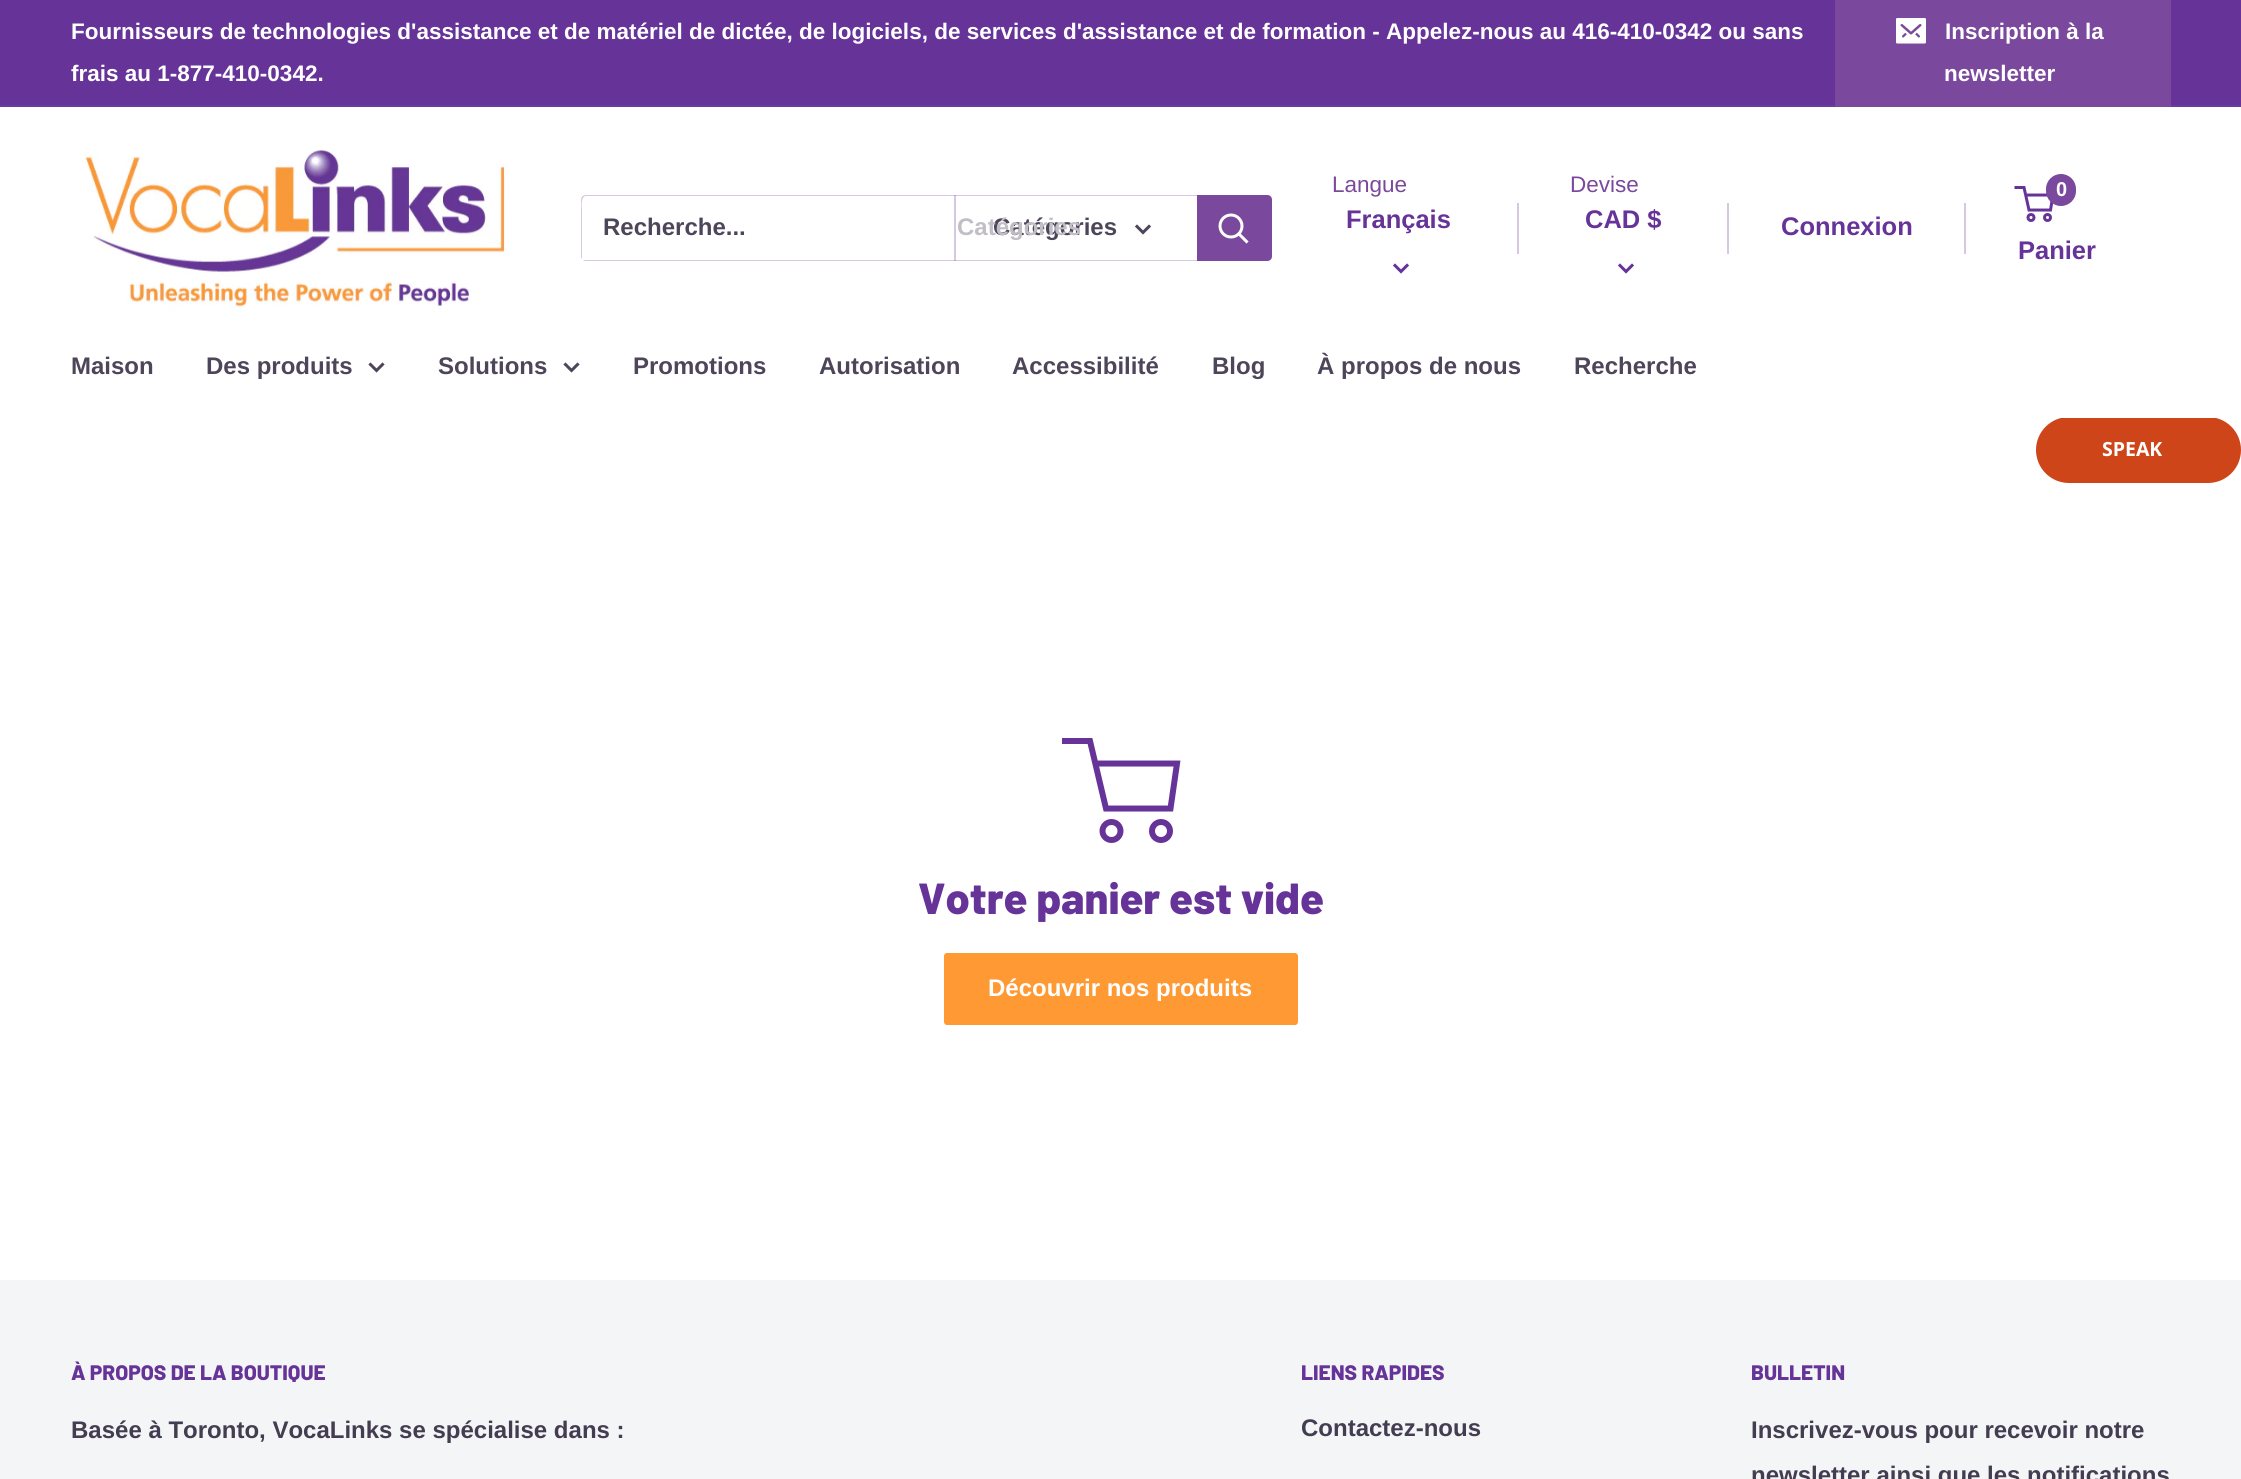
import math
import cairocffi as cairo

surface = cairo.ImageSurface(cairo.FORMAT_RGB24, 2241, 1479)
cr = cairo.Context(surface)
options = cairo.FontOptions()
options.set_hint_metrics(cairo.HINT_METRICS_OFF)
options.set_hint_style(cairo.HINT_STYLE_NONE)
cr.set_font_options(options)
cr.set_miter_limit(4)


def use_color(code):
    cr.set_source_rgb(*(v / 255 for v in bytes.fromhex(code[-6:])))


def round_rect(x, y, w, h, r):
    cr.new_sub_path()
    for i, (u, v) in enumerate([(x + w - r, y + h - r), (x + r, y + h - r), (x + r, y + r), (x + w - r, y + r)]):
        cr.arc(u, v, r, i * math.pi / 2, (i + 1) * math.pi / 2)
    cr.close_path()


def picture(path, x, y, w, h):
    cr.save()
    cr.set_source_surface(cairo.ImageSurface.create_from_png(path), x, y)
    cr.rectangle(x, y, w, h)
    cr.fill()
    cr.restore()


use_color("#ffffff")
cr.paint()
use_color("#663399")
cr.rectangle(0, 0, 2241, 105)
cr.fill()
use_color("#6c3a9a")
cr.rectangle(0, 105, 2241, 2)
cr.fill()
cr.select_font_face("Liberation Sans", cairo.FONT_SLANT_NORMAL, cairo.FONT_WEIGHT_BOLD)
cr.set_font_size(22.5)
use_color("#ffffff")
cr.move_to(71, 39)
cr.show_text("Fournisseurs de technologies d'assistance et de matériel de dictée, de logiciels, de services d'assistance et de formation - Appelez-nous au 416-410-0342 ou sans")
cr.move_to(71, 81)
cr.show_text("frais au 1-877-410-0342.")
use_color("#7a499d")
cr.new_path()
cr.move_to(1835, 105)
cr.line_to(1835, 107)
cr.line_to(2171, 107)
cr.line_to(2171, 2)
cr.line_to(2170, 2)
cr.line_to(2170, 105)
cr.close_path()
cr.fill()
cr.rectangle(1835, 0, 336, 105)
cr.fill()
picture("img1.png", 1896, 18, 30, 26)
use_color("#ffffff")
cr.move_to(1945, 39)
cr.show_text("Inscription à la")
cr.move_to(1944, 81)
cr.show_text("newsletter")
picture("img2.png", 85, 150, 425, 162)
use_color("#d7c8e2")
cr.new_path()
cr.move_to(583, 260)
cr.curve_to(584, 261, 585, 261, 586, 261)
cr.line_to(1267, 261)
cr.curve_to(1270, 261, 1272, 259, 1272, 256)
cr.line_to(1272, 200)
cr.curve_to(1272, 198, 1271, 196, 1269, 195)
cr.curve_to(1270, 196, 1270, 197, 1270, 198)
cr.line_to(1270, 255)
cr.curve_to(1270, 257, 1268, 260, 1266, 260)
cr.close_path()
cr.fill()
cr.new_path()
cr.move_to(586, 196)
cr.line_to(1269, 196)
cr.line_to(1271, 196)
cr.curve_to(1270, 196, 1268, 195, 1267, 195)
cr.line_to(586, 195)
cr.curve_to(583, 195, 581, 197, 581, 200)
cr.line_to(581, 256)
cr.curve_to(581, 257, 581, 258, 582, 259)
cr.line_to(582, 210)
cr.curve_to(582, 210, 580, 196, 586, 196)
cr.close_path()
cr.fill()
cr.set_font_size(24)
use_color("#4d4559")
cr.move_to(603, 235)
cr.show_text("Recherche...")
cr.set_source_rgba(0.478, 0.286, 0.616, 0.3)
cr.rectangle(954, 195, 2, 66)
cr.fill()
use_color("#4d4559")
cr.move_to(993, 235)
cr.show_text("Catégories")
use_color("#c1bec5")
cr.move_to(957, 235)
cr.show_text("Catégories")
cr.new_path()
cr.move_to(1149, 226.5)
cr.line_to(1143, 232.5)
cr.line_to(1137, 226.5)
use_color("#4d4559")
cr.set_line_width(3)
cr.set_line_cap(cairo.LINE_CAP_SQUARE)
cr.stroke()
use_color("#7a499d")
cr.new_path()
cr.move_to(1197, 195)
cr.line_to(1267, 195)
cr.curve_to(1270, 195, 1272, 197, 1272, 200)
cr.line_to(1272, 256)
cr.curve_to(1272, 259, 1270, 261, 1267, 261)
cr.line_to(1197, 261)
cr.close_path()
cr.fill()
cr.new_path()
cr.move_to(1246.5, 241.5)
cr.line_to(1239, 234)
use_color("#ffffff")
cr.stroke()
cr.arc(1231, 226, 11, 0, 2 * math.pi)
cr.set_line_cap(cairo.LINE_CAP_BUTT)
cr.stroke()
cr.select_font_face("Liberation Sans")
cr.set_font_size(22.5)
use_color("#7a499d")
cr.move_to(1332, 192)
cr.show_text("Langue")
cr.select_font_face("Liberation Sans", cairo.FONT_SLANT_NORMAL, cairo.FONT_WEIGHT_BOLD)
cr.set_font_size(25.5)
use_color("#663399")
cr.move_to(1346, 228)
cr.show_text("Français")
cr.new_path()
cr.move_to(1407, 265.5)
cr.line_to(1401, 271.5)
cr.line_to(1395, 265.5)
cr.set_line_cap(cairo.LINE_CAP_SQUARE)
cr.stroke()
use_color("#d7c8e2")
cr.rectangle(1517, 203, 2, 51)
cr.fill()
cr.select_font_face("Liberation Sans")
cr.set_font_size(22.5)
use_color("#7a499d")
cr.move_to(1570, 192)
cr.show_text("Devise")
cr.select_font_face("Liberation Sans", cairo.FONT_SLANT_NORMAL, cairo.FONT_WEIGHT_BOLD)
cr.set_font_size(25.5)
use_color("#663399")
cr.move_to(1585, 228)
cr.show_text("CAD $")
cr.new_path()
cr.move_to(1632, 265.5)
cr.line_to(1626, 271.5)
cr.line_to(1620, 265.5)
cr.stroke()
use_color("#d7c8e2")
cr.rectangle(1727, 203, 2, 51)
cr.fill()
use_color("#663399")
cr.move_to(1781, 235)
cr.show_text("Connexion")
use_color("#d7c8e2")
cr.rectangle(1964, 203, 2, 51)
cr.fill()
cr.arc(2031, 217.5, 3, 0, 2 * math.pi)
use_color("#663399")
cr.set_line_cap(cairo.LINE_CAP_BUTT)
cr.stroke()
cr.arc(2047.5, 217.5, 3, 0, 2 * math.pi)
cr.stroke()
cr.new_path()
cr.move_to(2025.5, 195)
cr.line_to(2053, 195)
cr.line_to(2050.5, 210)
cr.line_to(2029, 210)
cr.line_to(2024, 187.5)
cr.line_to(2014.5, 187.5)
cr.stroke()
use_color("#7a499d")
round_rect(2046, 174, 30, 32, 15)
cr.fill()
cr.set_font_size(20)
use_color("#ffffff")
cr.move_to(2056, 196)
cr.show_text("0")
cr.set_font_size(25.5)
use_color("#663399")
cr.move_to(2018, 259)
cr.show_text("Panier")
use_color("#cd4518")
round_rect(2037.5, 418.5, 202, 63, 31.5)
cr.fill_preserve()
cr.stroke()
use_color("#ffffff")
cr.rectangle(2061, 417, 155, 1)
cr.fill()
cr.set_font_size(24)
use_color("#4d4559")
cr.move_to(71, 374)
cr.show_text("Maison")
cr.move_to(206, 374)
cr.show_text("Des produits")
cr.new_path()
cr.move_to(382.5, 364.5)
cr.line_to(376.5, 370.5)
cr.line_to(370.5, 364.5)
cr.set_line_cap(cairo.LINE_CAP_SQUARE)
cr.stroke()
cr.move_to(438, 374)
cr.show_text("Solutions")
cr.new_path()
cr.move_to(577.5, 364.5)
cr.line_to(571.5, 370.5)
cr.line_to(565.5, 364.5)
cr.stroke()
cr.move_to(633, 374)
cr.show_text("Promotions")
cr.move_to(819, 374)
cr.show_text("Autorisation")
cr.move_to(1012, 374)
cr.show_text("Accessibilité")
cr.move_to(1212, 374)
cr.show_text("Blog")
cr.move_to(1317, 374)
cr.show_text("À propos de nous")
cr.move_to(1574, 374)
cr.show_text("Recherche")
cr.select_font_face("Open Sans", cairo.FONT_SLANT_NORMAL, cairo.FONT_WEIGHT_BOLD)
cr.set_font_size(19.5)
use_color("#ffffff")
cr.move_to(2102, 456)
cr.show_text("SPEAK")
cr.new_path()
cr.move_to(1095, 763.5)
cr.line_to(1177, 763.5)
cr.line_to(1170.5, 808.5)
cr.line_to(1106, 808.5)
cr.line_to(1090, 741)
cr.line_to(1062, 741)
use_color("#663399")
cr.set_line_width(6)
cr.set_line_cap(cairo.LINE_CAP_BUTT)
cr.stroke()
cr.arc(1111.5, 831, 9, 0, 2 * math.pi)
cr.stroke()
cr.arc(1161, 831, 9, 0, 2 * math.pi)
cr.stroke()
cr.select_font_face("Barlow ExtraBold")
cr.set_font_size(43.5)
cr.move_to(918, 914)
cr.show_text("Votre panier est vide")
use_color("#ff9933")
round_rect(944, 953, 354, 72, 3)
cr.fill()
cr.select_font_face("Liberation Sans", cairo.FONT_SLANT_NORMAL, cairo.FONT_WEIGHT_BOLD)
cr.set_font_size(24)
use_color("#ffffff")
cr.move_to(988, 996)
cr.show_text("Découvrir nos produits")
use_color("#f3f5f6")
cr.rectangle(0, 1280, 2241, 199)
cr.fill()
cr.select_font_face("Barlow ExtraBold")
cr.set_font_size(21)
use_color("#663399")
cr.move_to(71, 1380)
cr.show_text("À PROPOS DE LA BOUTIQUE")
cr.select_font_face("Liberation Sans", cairo.FONT_SLANT_NORMAL, cairo.FONT_WEIGHT_BOLD)
cr.set_font_size(24)
use_color("#443c51")
cr.move_to(71, 1438)
cr.show_text("Basée à Toronto, VocaLinks se spécialise dans :")
cr.select_font_face("Barlow ExtraBold")
cr.set_font_size(21)
use_color("#663399")
cr.move_to(1301, 1380)
cr.show_text("LIENS RAPIDES")
cr.select_font_face("Liberation Sans", cairo.FONT_SLANT_NORMAL, cairo.FONT_WEIGHT_BOLD)
cr.set_font_size(24)
use_color("#443c51")
cr.move_to(1301, 1436)
cr.show_text("Contactez-nous")
cr.select_font_face("Barlow ExtraBold")
cr.set_font_size(21)
use_color("#663399")
cr.move_to(1751, 1380)
cr.show_text("BULLETIN")
cr.select_font_face("Liberation Sans", cairo.FONT_SLANT_NORMAL, cairo.FONT_WEIGHT_BOLD)
cr.set_font_size(24)
use_color("#443c51")
cr.move_to(1751, 1438)
cr.show_text("Inscrivez-vous pour recevoir notre")
cr.move_to(1751, 1483)
cr.show_text("newsletter ainsi que les notifications")
surface.write_to_png("result.png")
